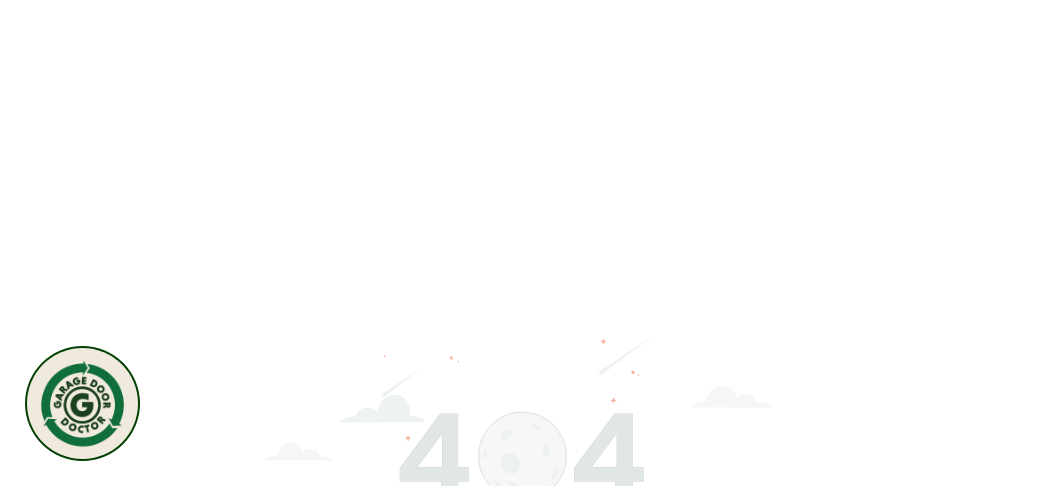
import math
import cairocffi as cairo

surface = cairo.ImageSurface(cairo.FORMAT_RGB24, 1038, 486)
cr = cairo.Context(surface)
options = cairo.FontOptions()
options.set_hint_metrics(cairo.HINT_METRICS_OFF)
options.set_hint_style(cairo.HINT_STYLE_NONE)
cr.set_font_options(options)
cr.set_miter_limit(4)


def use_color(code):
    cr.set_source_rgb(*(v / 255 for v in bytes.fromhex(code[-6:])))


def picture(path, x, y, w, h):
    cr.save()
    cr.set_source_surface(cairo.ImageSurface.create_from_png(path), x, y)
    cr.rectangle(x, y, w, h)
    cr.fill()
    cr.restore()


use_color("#ffffff")
cr.paint()
use_color("#014002")
cr.arc(82.5, 403.5, 57.5, 0, 2 * math.pi)
cr.fill()
picture("img1.png", 27, 348, 111, 111)
picture("img2.png", 266, 336, 506, 150)
surface.write_to_png("result.png")
